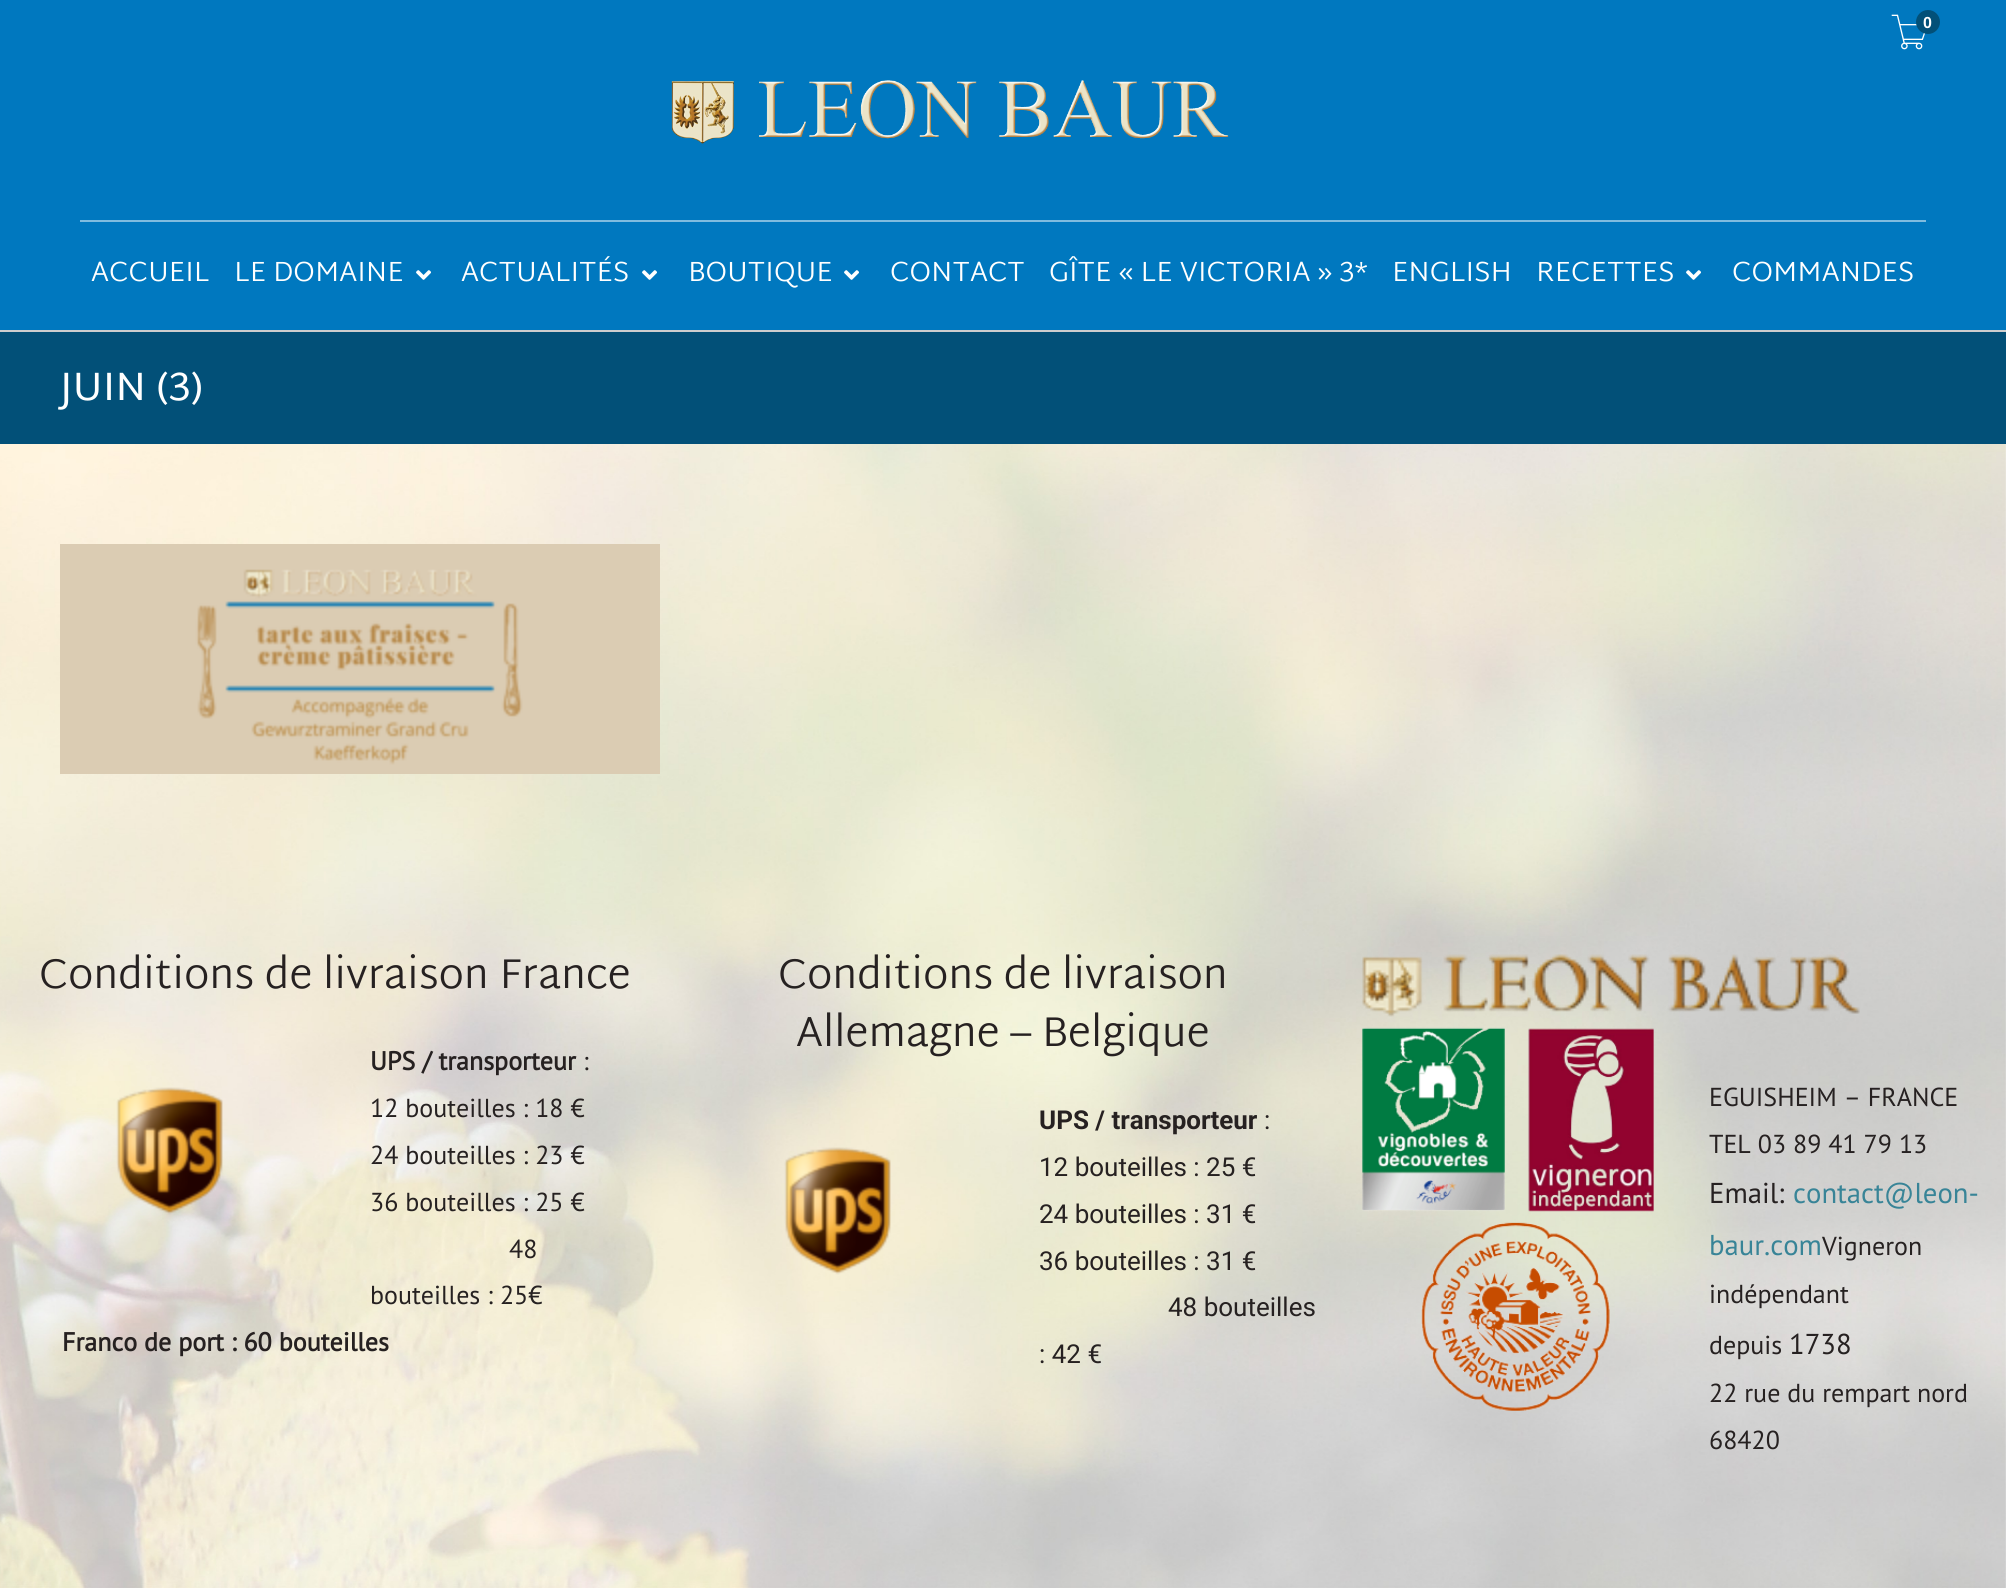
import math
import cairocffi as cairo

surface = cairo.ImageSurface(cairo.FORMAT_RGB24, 2006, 1588)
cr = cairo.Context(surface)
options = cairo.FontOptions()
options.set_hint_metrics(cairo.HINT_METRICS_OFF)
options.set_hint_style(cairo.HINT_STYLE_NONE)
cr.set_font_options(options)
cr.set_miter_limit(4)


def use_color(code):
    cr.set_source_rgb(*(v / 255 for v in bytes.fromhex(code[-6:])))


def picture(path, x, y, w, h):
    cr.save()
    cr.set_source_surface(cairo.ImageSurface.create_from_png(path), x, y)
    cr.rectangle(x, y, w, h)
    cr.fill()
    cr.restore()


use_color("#ffffff")
cr.paint()
picture("img1.png", 0, 444, 2006, 1144)
use_color("#0078bf")
cr.rectangle(0, 0, 2006, 330)
cr.fill()
picture("img2.png", 1891, 14, 35, 36)
use_color("#025078")
cr.arc(1928, 22, 12, 0, 2 * math.pi)
cr.fill()
cr.select_font_face("Liberation Sans", cairo.FONT_SLANT_NORMAL, cairo.FONT_WEIGHT_BOLD)
cr.set_font_size(16)
use_color("#ffffff")
cr.move_to(1923, 28)
cr.show_text("0")
picture("img3.png", 671, 80, 558, 64)
use_color("#80bcdf")
cr.rectangle(80, 220, 1846, 2)
cr.fill()
cr.select_font_face("Martel Sans Light")
cr.set_font_size(28)
use_color("#ffffff")
cr.move_to(91, 281)
cr.show_text("ACCUEIL")
cr.move_to(234, 281)
cr.show_text("LE DOMAINE")
picture("img4.png", 416, 270, 15, 10)
cr.move_to(461, 281)
cr.show_text("ACTUALITÉS")
picture("img4.png", 642, 270, 15, 10)
cr.move_to(688, 281)
cr.show_text("BOUTIQUE")
picture("img4.png", 844, 270, 15, 10)
cr.move_to(890, 281)
cr.show_text("CONTACT")
cr.move_to(1049, 281)
cr.show_text("GÎTE « LE VICTORIA » 3*")
cr.move_to(1392, 281)
cr.show_text("ENGLISH")
cr.move_to(1536, 281)
cr.show_text("RECETTES")
picture("img4.png", 1686, 270, 15, 10)
cr.move_to(1732, 281)
cr.show_text("COMMANDES")
use_color("#cecece")
cr.rectangle(0, 330, 2006, 2)
cr.fill()
use_color("#025078")
cr.rectangle(0, 332, 2006, 112)
cr.fill()
cr.select_font_face("Martel Sans")
cr.set_font_size(40)
use_color("#ffffff")
cr.move_to(60, 400)
cr.show_text("JUIN (3)")
picture("img5.png", 60, 544, 600, 230)
cr.select_font_face("Martel Sans Light")
cr.set_font_size(42)
use_color("#262121")
cr.move_to(39, 988)
cr.show_text("Conditions de livraison France")
cr.select_font_face("PT Sans", cairo.FONT_SLANT_NORMAL, cairo.FONT_WEIGHT_BOLD)
cr.set_font_size(26)
cr.move_to(370, 1070)
cr.show_text("UPS / transporteur")
picture("img6.png", 116, 1087, 107, 128)
cr.select_font_face("PT Sans")
cr.move_to(583, 1070)
cr.show_text(":")
cr.move_to(370, 1117)
cr.show_text("12 bouteilles : 18 €")
cr.move_to(370, 1164)
cr.show_text("24 bouteilles : 23 €")
cr.move_to(370, 1211)
cr.show_text("36 bouteilles : 25 €")
cr.move_to(509, 1258)
cr.show_text("48")
cr.move_to(370, 1304)
cr.show_text("bouteilles : 25€")
cr.select_font_face("PT Sans", cairo.FONT_SLANT_NORMAL, cairo.FONT_WEIGHT_BOLD)
cr.move_to(62, 1351)
cr.show_text("Franco de port : 60 bouteilles")
cr.select_font_face("Martel Sans Light")
cr.set_font_size(42)
cr.move_to(778, 988)
cr.show_text("Conditions de livraison")
cr.move_to(796, 1046)
cr.show_text("Allemagne – Belgique")
cr.select_font_face("Roboto", cairo.FONT_SLANT_NORMAL, cairo.FONT_WEIGHT_BOLD)
cr.set_font_size(26)
cr.move_to(1039, 1129)
cr.show_text("UPS / transporteur")
picture("img7.png", 784, 1147, 107, 128)
cr.select_font_face("Roboto")
cr.move_to(1264, 1129)
cr.show_text(":")
cr.move_to(1039, 1176)
cr.show_text("12 bouteilles : 25 €")
cr.move_to(1039, 1223)
cr.show_text("24 bouteilles : 31 €")
cr.move_to(1039, 1270)
cr.show_text("36 bouteilles : 31 €")
cr.move_to(1168, 1316)
cr.show_text("48 bouteilles")
cr.move_to(1039, 1363)
cr.show_text(": 42 €")
picture("img8.png", 1362, 954, 498, 63)
picture("img9.png", 1362, 1027, 292, 384)
cr.select_font_face("PT Sans")
cr.move_to(1709, 1106)
cr.show_text("EGUISHEIM – FRANCE")
cr.move_to(1709, 1153)
cr.show_text("TEL 03 89 41 79 13")
cr.set_font_size(28.75)
cr.move_to(1709, 1203)
cr.show_text("Email:")
use_color("#388497")
cr.move_to(1793, 1203)
cr.show_text("contact@leon-")
cr.move_to(1709, 1255)
cr.show_text("baur.com")
cr.set_font_size(26)
use_color("#262121")
cr.move_to(1822, 1255)
cr.show_text("Vigneron")
cr.move_to(1709, 1303)
cr.show_text("indépendant")
cr.move_to(1709, 1354)
cr.show_text("depuis")
cr.set_font_size(28.75)
cr.move_to(1789, 1354)
cr.show_text("1738")
cr.set_font_size(26)
cr.move_to(1709, 1402)
cr.show_text("22 rue du rempart nord")
cr.move_to(1709, 1449)
cr.show_text("68420")
surface.write_to_png("result.png")
